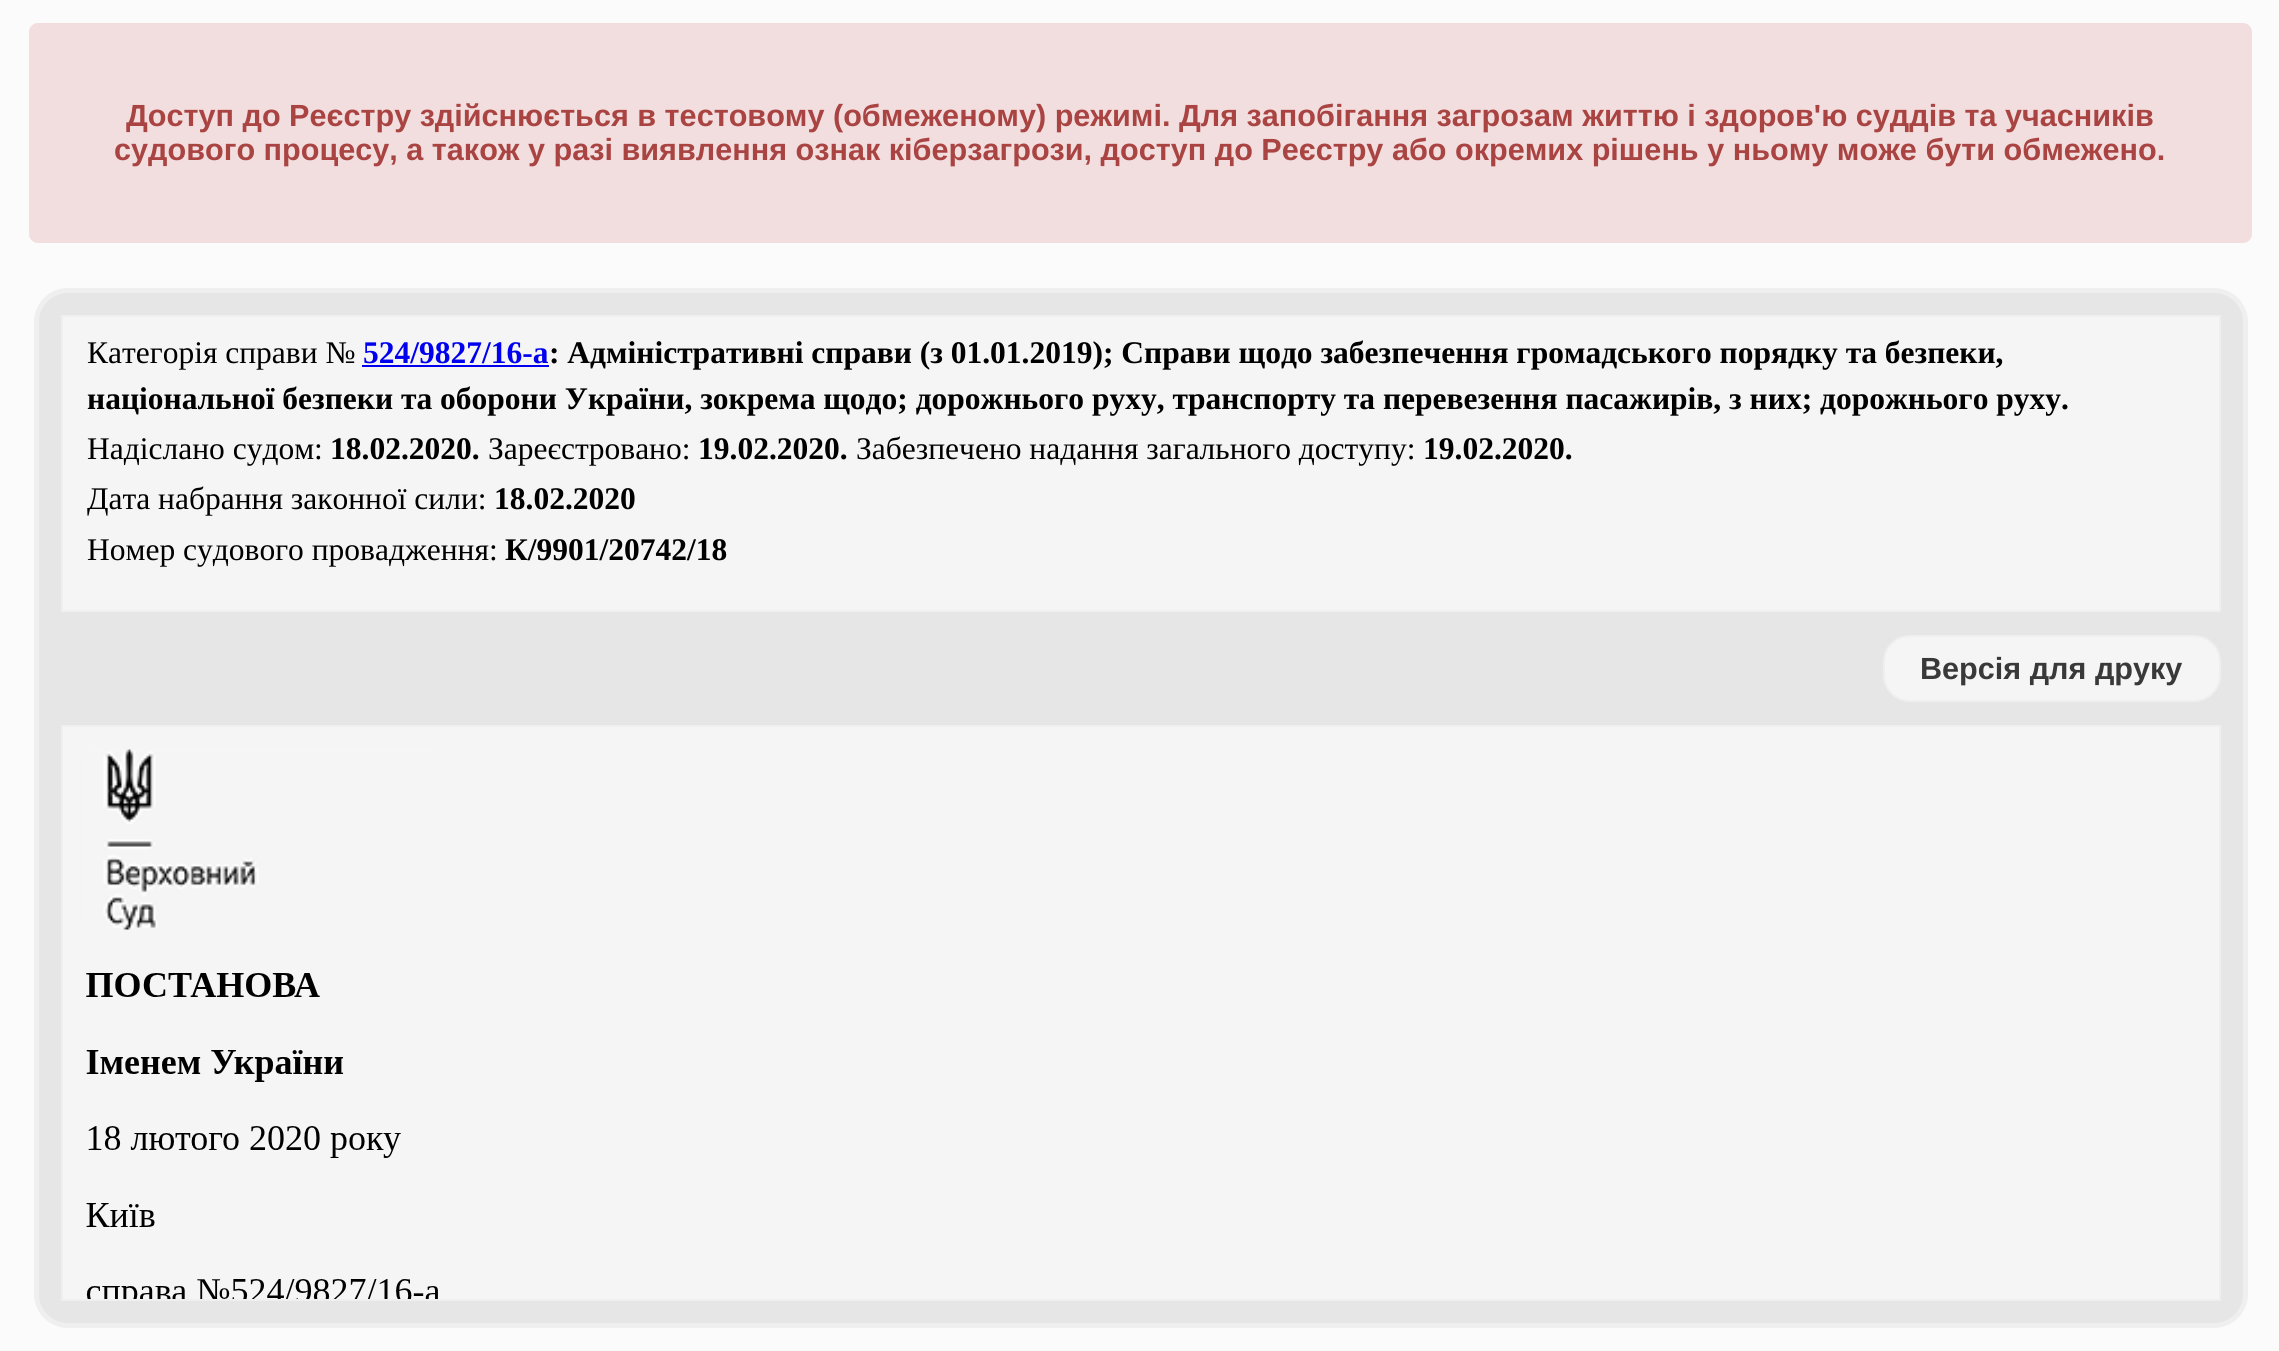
import math
import cairocffi as cairo

surface = cairo.ImageSurface(cairo.FORMAT_RGB24, 2279, 1351)
cr = cairo.Context(surface)
options = cairo.FontOptions()
options.set_hint_metrics(cairo.HINT_METRICS_OFF)
options.set_hint_style(cairo.HINT_STYLE_NONE)
cr.set_font_options(options)
cr.set_miter_limit(4)


def use_color(code):
    cr.set_source_rgb(*(v / 255 for v in bytes.fromhex(code[-6:])))


def round_rect(x, y, w, h, r):
    cr.new_sub_path()
    for i, (u, v) in enumerate([(x + w - r, y + h - r), (x + r, y + h - r), (x + r, y + r), (x + w - r, y + r)]):
        cr.arc(u, v, r, i * math.pi / 2, (i + 1) * math.pi / 2)
    cr.close_path()


def picture(path, x, y, w, h):
    cr.save()
    cr.set_source_surface(cairo.ImageSurface.create_from_png(path), x, y)
    cr.rectangle(x, y, w, h)
    cr.fill()
    cr.restore()


use_color("#fbfbfb")
cr.paint()
use_color("#f2dede")
round_rect(29, 23, 2223, 220, 9)
cr.fill()
cr.select_font_face("Liberation Sans", cairo.FONT_SLANT_NORMAL, cairo.FONT_WEIGHT_BOLD)
cr.set_font_size(30.6)
use_color("#a94442")
cr.move_to(126, 126)
cr.show_text("Доступ до Реєстру здійснюється в тестовому (обмеженому) режимі. Для запобігання загрозам життю і здоров'ю суддів та учасників")
cr.move_to(114, 160)
cr.show_text("судового процесу, а також у разі виявлення ознак кіберзагрози, доступ до Реєстру або окремих рішень у ньому може бути обмежено.")
use_color("#e6e6e6")
round_rect(36.5, 290.5, 2209, 1035, 31.5)
cr.fill_preserve()
use_color("#efefef")
cr.set_line_width(5)
cr.stroke()
use_color("#f5f5f5")
cr.rectangle(62, 316, 2158, 295)
cr.fill_preserve()
use_color("#efefef")
cr.set_line_width(2)
cr.stroke()
cr.select_font_face("Liberation Serif")
cr.set_font_size(31.5)
use_color("#000000")
cr.move_to(87, 363)
cr.show_text("Категорія справи №")
cr.select_font_face("Liberation Serif", cairo.FONT_SLANT_NORMAL, cairo.FONT_WEIGHT_BOLD)
use_color("#0000ee")
cr.move_to(363, 363)
cr.show_text("524/9827/16-а")
use_color("#000000")
cr.move_to(549, 363)
cr.show_text(": Адміністративні справи (з 01.01.2019); Справи щодо забезпечення громадського порядку та безпеки,")
use_color("#0000ee")
cr.rectangle(362, 365, 187, 2)
cr.fill()
use_color("#000000")
cr.move_to(87, 409)
cr.show_text("національної безпеки та оборони України, зокрема щодо; дорожнього руху, транспорту та перевезення пасажирів, з них; дорожнього руху.")
cr.select_font_face("Liberation Serif")
cr.move_to(87, 459)
cr.show_text("Надіслано судом:")
cr.select_font_face("Liberation Serif", cairo.FONT_SLANT_NORMAL, cairo.FONT_WEIGHT_BOLD)
cr.move_to(330, 459)
cr.show_text("18.02.2020.")
cr.select_font_face("Liberation Serif")
cr.move_to(488, 459)
cr.show_text("Зареєстровано:")
cr.select_font_face("Liberation Serif", cairo.FONT_SLANT_NORMAL, cairo.FONT_WEIGHT_BOLD)
cr.move_to(698, 459)
cr.show_text("19.02.2020.")
cr.select_font_face("Liberation Serif")
cr.move_to(856, 459)
cr.show_text("Забезпечено надання загального доступу:")
cr.select_font_face("Liberation Serif", cairo.FONT_SLANT_NORMAL, cairo.FONT_WEIGHT_BOLD)
cr.move_to(1423, 459)
cr.show_text("19.02.2020.")
cr.select_font_face("Liberation Serif")
cr.move_to(87, 509)
cr.show_text("Дата набрання законної сили:")
cr.select_font_face("Liberation Serif", cairo.FONT_SLANT_NORMAL, cairo.FONT_WEIGHT_BOLD)
cr.move_to(494, 509)
cr.show_text("18.02.2020")
cr.select_font_face("Liberation Serif")
cr.move_to(87, 560)
cr.show_text("Номер судового провадження:")
cr.select_font_face("Liberation Serif", cairo.FONT_SLANT_NORMAL, cairo.FONT_WEIGHT_BOLD)
cr.move_to(505, 560)
cr.show_text("К/9901/20742/18")
use_color("#f5f5f5")
round_rect(1884, 636, 336, 65, 26)
cr.fill_preserve()
use_color("#efefef")
cr.stroke()
cr.select_font_face("Liberation Sans", cairo.FONT_SLANT_NORMAL, cairo.FONT_WEIGHT_BOLD)
cr.set_font_size(30.6)
use_color("#393939")
cr.move_to(1920, 679)
cr.show_text("Версія для друку")
use_color("#f5f5f5")
cr.rectangle(62, 726, 2158, 574)
cr.fill_preserve()
use_color("#efefef")
cr.stroke()
picture("img1.png", 86, 749, 352, 550)
surface.write_to_png("result.png")
